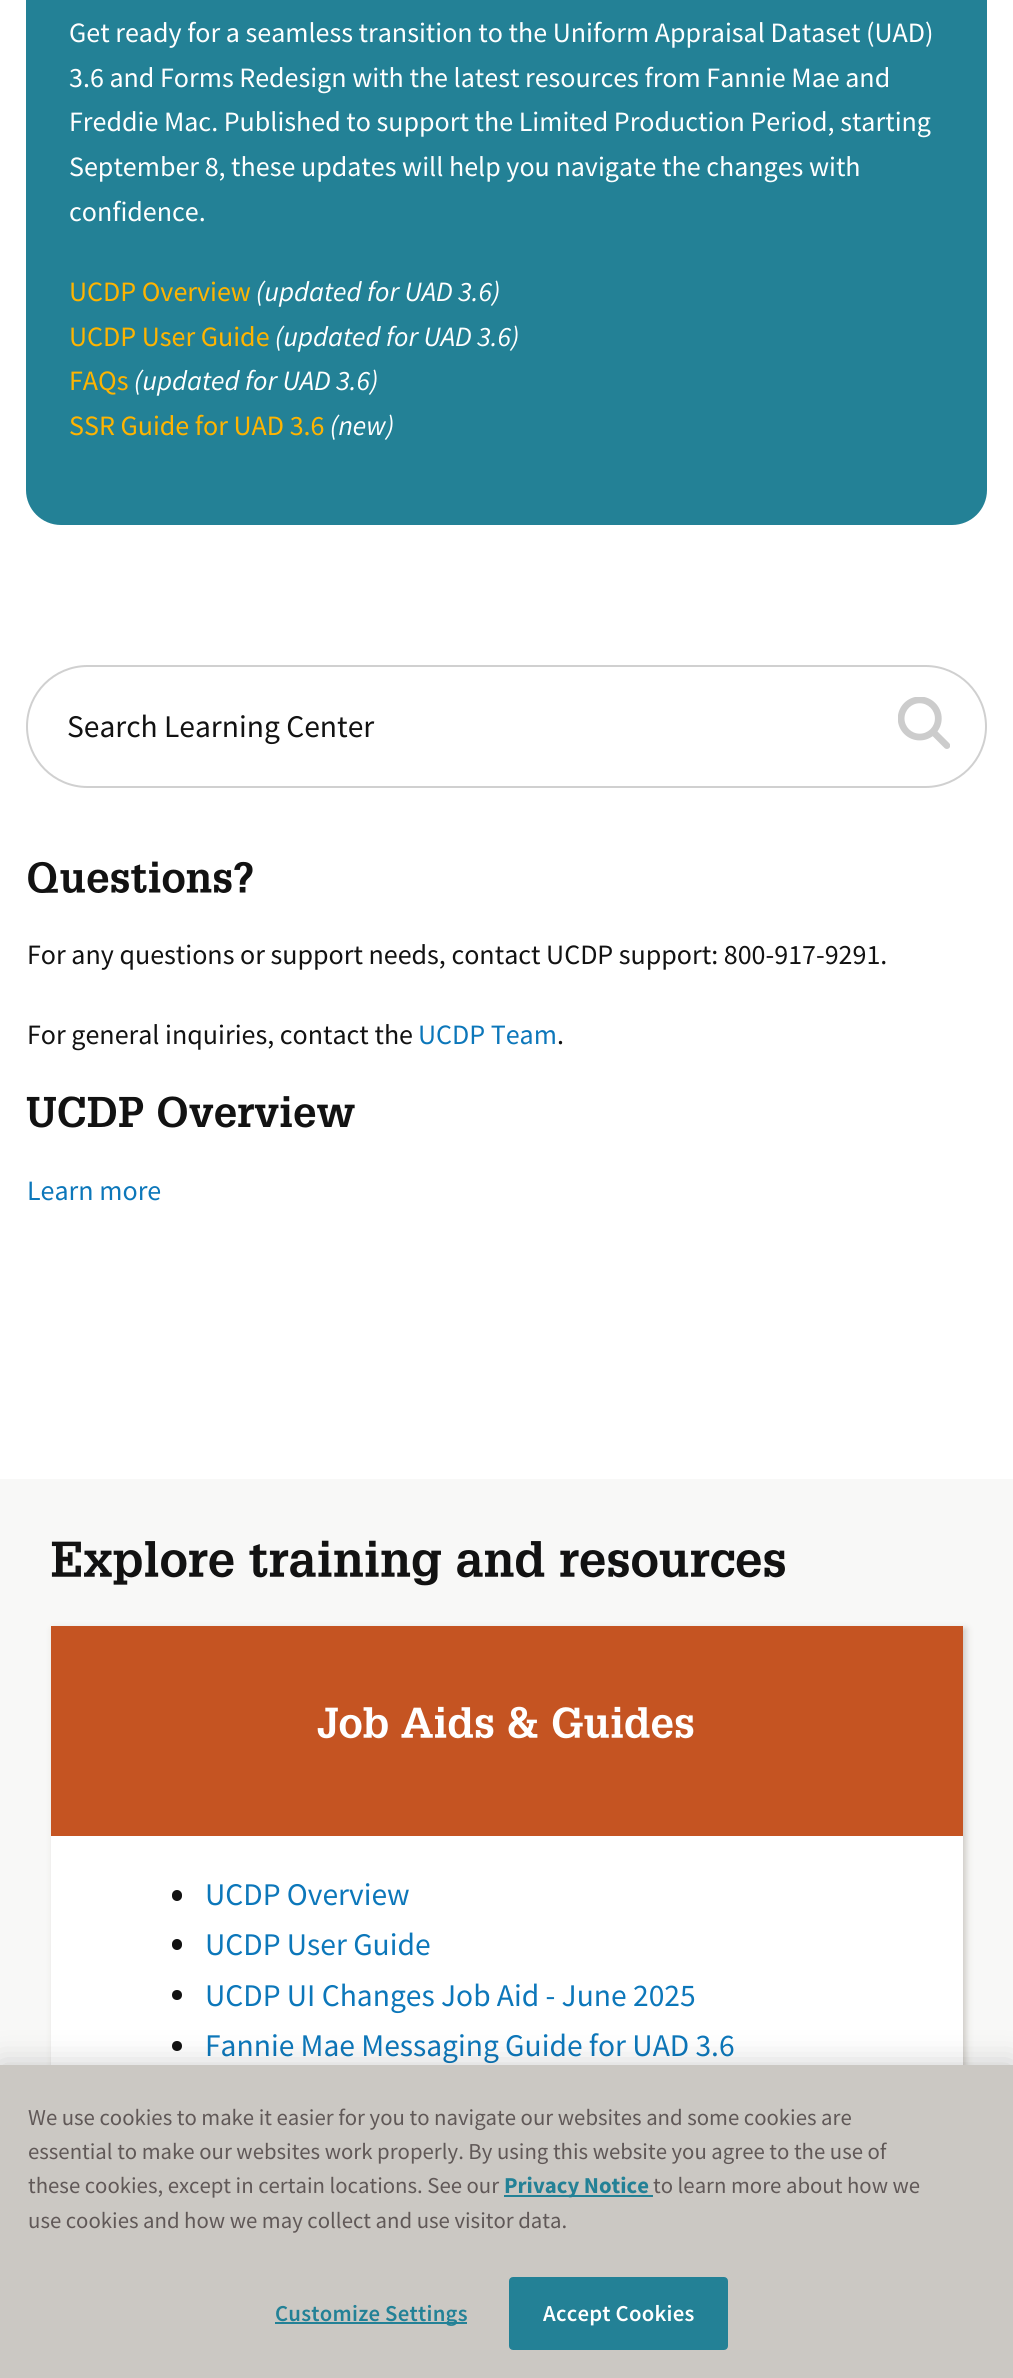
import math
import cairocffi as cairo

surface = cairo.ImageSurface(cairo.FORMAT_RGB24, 1013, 2378)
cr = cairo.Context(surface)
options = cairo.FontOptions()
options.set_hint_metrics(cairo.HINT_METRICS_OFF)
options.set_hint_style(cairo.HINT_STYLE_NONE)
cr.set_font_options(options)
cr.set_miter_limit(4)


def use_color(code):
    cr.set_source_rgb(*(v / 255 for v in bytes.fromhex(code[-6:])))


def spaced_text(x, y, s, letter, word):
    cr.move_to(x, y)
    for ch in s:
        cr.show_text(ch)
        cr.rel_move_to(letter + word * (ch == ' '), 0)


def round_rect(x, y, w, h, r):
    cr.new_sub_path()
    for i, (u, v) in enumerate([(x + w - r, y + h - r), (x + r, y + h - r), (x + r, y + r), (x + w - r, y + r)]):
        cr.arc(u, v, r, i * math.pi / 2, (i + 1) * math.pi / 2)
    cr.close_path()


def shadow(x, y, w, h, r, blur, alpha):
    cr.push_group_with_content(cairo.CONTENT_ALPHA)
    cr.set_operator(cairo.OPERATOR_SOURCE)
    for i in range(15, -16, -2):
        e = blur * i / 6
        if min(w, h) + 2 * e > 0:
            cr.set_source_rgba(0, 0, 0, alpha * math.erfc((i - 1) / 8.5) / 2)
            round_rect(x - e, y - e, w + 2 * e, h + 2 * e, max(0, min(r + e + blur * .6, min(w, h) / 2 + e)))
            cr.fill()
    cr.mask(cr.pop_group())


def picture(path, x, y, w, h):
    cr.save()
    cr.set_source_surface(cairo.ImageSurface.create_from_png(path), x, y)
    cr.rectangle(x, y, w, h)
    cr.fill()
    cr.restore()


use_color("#ffffff")
cr.paint()
use_color("#238196")
round_rect(26, -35, 961, 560, 35)
cr.fill()
cr.select_font_face("Source Sans Pro")
cr.set_font_size(28)
use_color("#ffffff")
cr.move_to(69, 42)
cr.show_text("Get ready for a seamless transition to the Uniform Appraisal Dataset (UAD)")
cr.move_to(69, 87)
cr.show_text("3.6 and Forms Redesign with the latest resources from Fannie Mae and")
cr.move_to(69, 131)
cr.show_text("Freddie Mac. Published to support the Limited Production Period, starting")
cr.move_to(69, 176)
cr.show_text("September 8, these updates will help you navigate the changes with")
cr.move_to(69, 221)
cr.show_text("confidence.")
use_color("#ffb400")
cr.move_to(69, 301)
cr.show_text("UCDP Overview")
cr.select_font_face("Source Sans Pro", cairo.FONT_SLANT_ITALIC)
use_color("#ffffff")
cr.move_to(256, 301)
cr.show_text("(updated for UAD 3.6)")
cr.select_font_face("Source Sans Pro")
use_color("#ffb400")
cr.move_to(69, 346)
cr.show_text("UCDP User Guide")
cr.select_font_face("Source Sans Pro", cairo.FONT_SLANT_ITALIC)
use_color("#ffffff")
cr.move_to(275, 346)
cr.show_text("(updated for UAD 3.6)")
cr.select_font_face("Source Sans Pro")
use_color("#ffb400")
cr.move_to(69, 390)
cr.show_text("FAQs")
cr.select_font_face("Source Sans Pro", cairo.FONT_SLANT_ITALIC)
use_color("#ffffff")
cr.move_to(134, 390)
cr.show_text("(updated for UAD 3.6)")
cr.select_font_face("Source Sans Pro")
use_color("#ffb400")
cr.move_to(69, 435)
cr.show_text("SSR Guide for UAD 3.6")
cr.select_font_face("Source Sans Pro", cairo.FONT_SLANT_ITALIC)
use_color("#ffffff")
cr.move_to(330, 435)
cr.show_text("(new)")
round_rect(27, 666, 959, 121, 60.5)
use_color("#d0d0d0")
cr.stroke()
cr.select_font_face("Source Sans Pro")
cr.set_font_size(31.5)
use_color("#121212")
cr.move_to(67, 737)
cr.show_text("Search Learning Center")
picture("img1.png", 898, 697, 52, 52)
picture("img2.png", 28, 861, 225, 32)
cr.set_font_size(28)
cr.move_to(27, 964)
cr.show_text("For any questions or support needs, contact UCDP support: 800-917-9291.")
cr.move_to(27, 1044)
cr.show_text("For general inquiries, contact the")
use_color("#0c77ba")
cr.move_to(418, 1044)
cr.show_text("UCDP Team")
use_color("#121212")
cr.move_to(557, 1044)
cr.show_text(".")
picture("img3.png", 26, 1096, 329, 32)
use_color("#0c77ba")
cr.move_to(27, 1200)
cr.show_text("Learn more")
use_color("#f8f8f7")
cr.rectangle(0, 1479, 1013, 586)
cr.fill()
picture("img4.png", 51, 1540, 734, 46)
use_color("#cbc8c3")
shadow(54, 1629, 912, 546, 0, 3.5, 1)
use_color("#c55422")
cr.rectangle(51, 1626, 912, 210)
cr.fill()
picture("img5.png", 317, 1706, 377, 33)
use_color("#ffffff")
cr.rectangle(51, 1836, 912, 229)
cr.fill()
use_color("#121212")
round_rect(172, 1890, 10, 11, 5)
cr.fill()
cr.set_font_size(31.5)
use_color("#0c77ba")
cr.move_to(205, 1905)
cr.show_text("UCDP Overview")
use_color("#121212")
round_rect(172, 1939, 10, 11, 5)
cr.fill()
use_color("#0c77ba")
cr.move_to(205, 1955)
cr.show_text("UCDP User Guide")
use_color("#121212")
cr.new_path()
cr.arc(177, 1995, 5, 0, 2 * math.pi)
cr.fill()
use_color("#0c77ba")
cr.move_to(205, 2006)
cr.show_text("UCDP UI Changes Job Aid - June 2025")
use_color("#121212")
cr.new_path()
cr.arc(177, 2046, 5, 0, 2 * math.pi)
cr.fill()
use_color("#0c77ba")
cr.move_to(205, 2056)
cr.show_text("Fannie Mae Messaging Guide for UAD 3.6")
use_color("#000000")
shadow(0, 2065, 1013, 313, 0, 16, 0.2)
use_color("#cbc8c3")
cr.rectangle(0, 2065, 1013, 313)
cr.fill()
cr.set_font_size(22.75)
use_color("#605857")
cr.move_to(28, 2125)
cr.show_text("We use cookies to make it easier for you to navigate our websites and some cookies are")
cr.move_to(28, 2159)
cr.show_text("essential to make our websites work properly. By using this website you agree to the use of")
cr.move_to(28, 2193)
cr.show_text("these cookies, except in certain locations. See our")
use_color("#238196")
cr.rectangle(504, 2195, 149, 2)
cr.fill()
cr.select_font_face("Source Sans Pro", cairo.FONT_SLANT_NORMAL, cairo.FONT_WEIGHT_BOLD)
cr.move_to(504, 2193)
cr.show_text("Privacy Notice")
cr.select_font_face("Source Sans Pro")
use_color("#605857")
cr.move_to(653, 2193)
cr.show_text("to learn more about how we")
cr.move_to(28, 2228)
cr.show_text("use cookies and how we may collect and use visitor data.")
use_color("#238196")
cr.rectangle(275, 2322, 192, 2)
cr.fill()
cr.select_font_face("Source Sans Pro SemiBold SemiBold")
spaced_text(275, 2321, "Customize Settings", 0.25, 0)
round_rect(510, 2278, 217, 71, 3)
cr.fill_preserve()
cr.stroke()
use_color("#ffffff")
spaced_text(543, 2321, "Accept Cookies", 0.25, 0)
surface.write_to_png("result.png")
